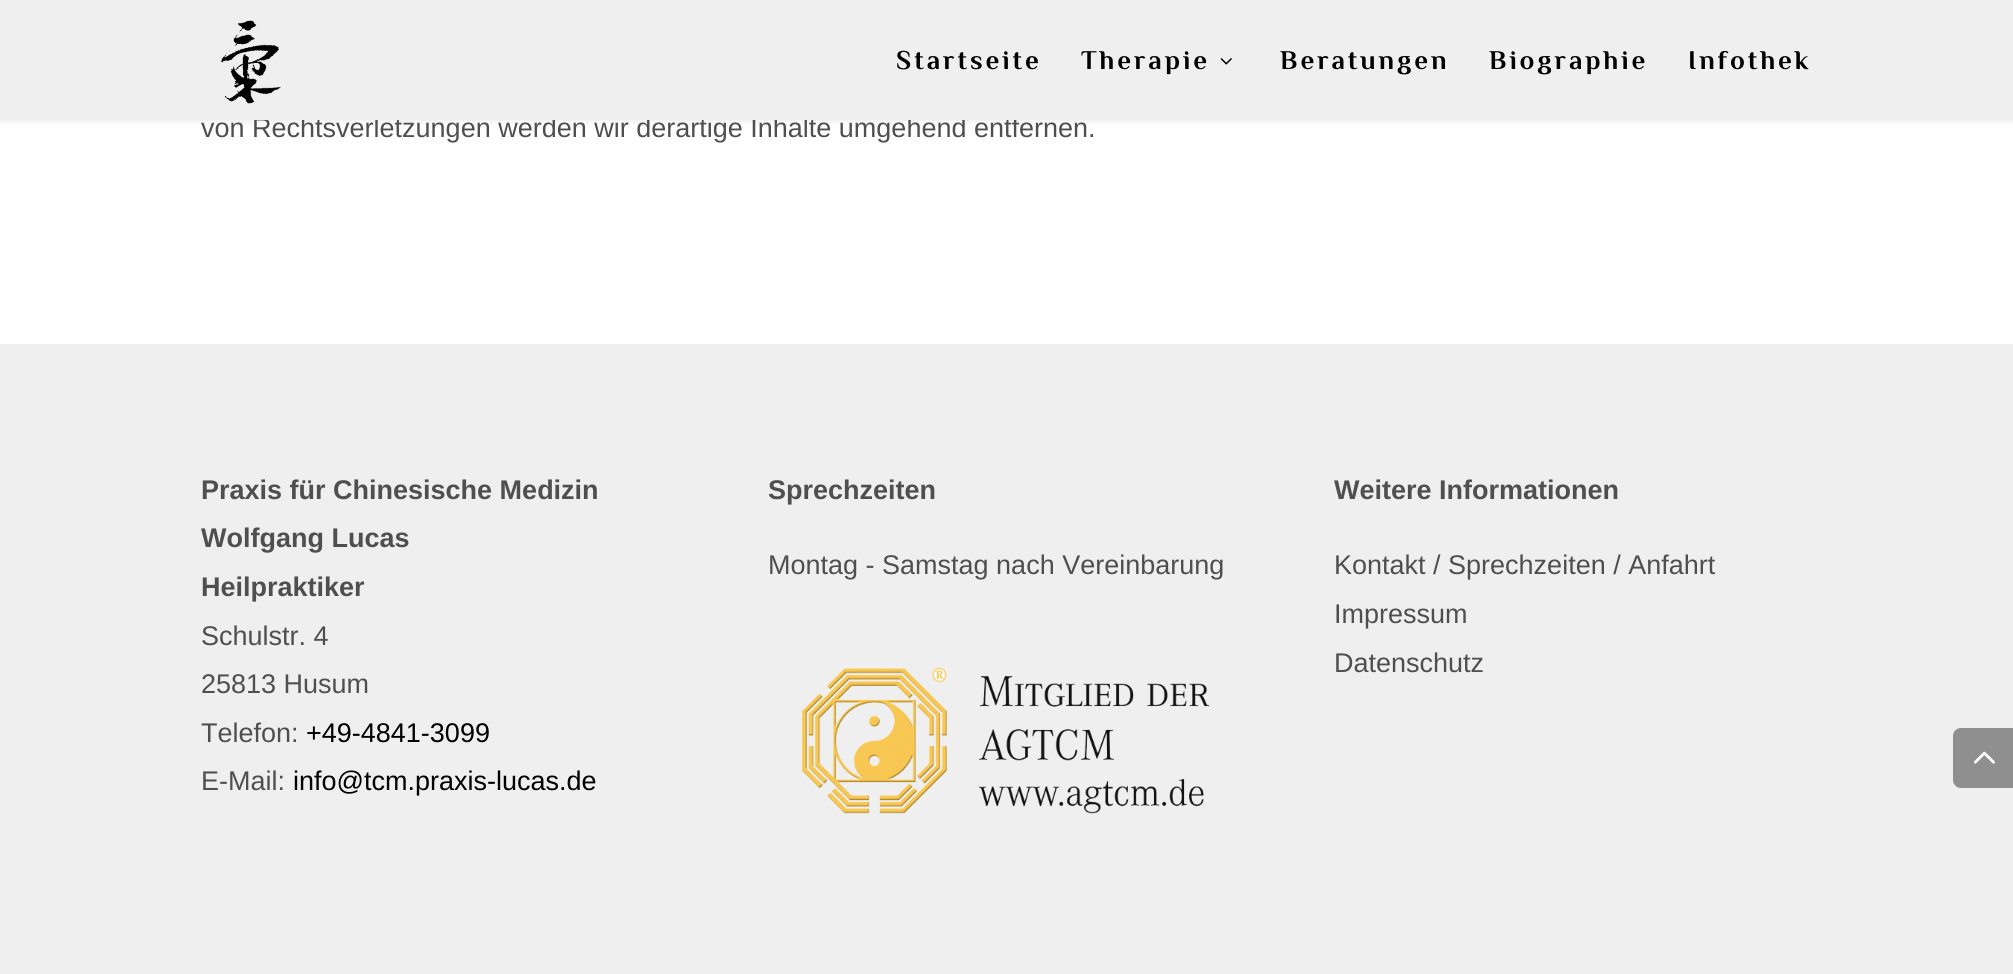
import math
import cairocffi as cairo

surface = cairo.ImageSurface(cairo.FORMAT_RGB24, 2013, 974)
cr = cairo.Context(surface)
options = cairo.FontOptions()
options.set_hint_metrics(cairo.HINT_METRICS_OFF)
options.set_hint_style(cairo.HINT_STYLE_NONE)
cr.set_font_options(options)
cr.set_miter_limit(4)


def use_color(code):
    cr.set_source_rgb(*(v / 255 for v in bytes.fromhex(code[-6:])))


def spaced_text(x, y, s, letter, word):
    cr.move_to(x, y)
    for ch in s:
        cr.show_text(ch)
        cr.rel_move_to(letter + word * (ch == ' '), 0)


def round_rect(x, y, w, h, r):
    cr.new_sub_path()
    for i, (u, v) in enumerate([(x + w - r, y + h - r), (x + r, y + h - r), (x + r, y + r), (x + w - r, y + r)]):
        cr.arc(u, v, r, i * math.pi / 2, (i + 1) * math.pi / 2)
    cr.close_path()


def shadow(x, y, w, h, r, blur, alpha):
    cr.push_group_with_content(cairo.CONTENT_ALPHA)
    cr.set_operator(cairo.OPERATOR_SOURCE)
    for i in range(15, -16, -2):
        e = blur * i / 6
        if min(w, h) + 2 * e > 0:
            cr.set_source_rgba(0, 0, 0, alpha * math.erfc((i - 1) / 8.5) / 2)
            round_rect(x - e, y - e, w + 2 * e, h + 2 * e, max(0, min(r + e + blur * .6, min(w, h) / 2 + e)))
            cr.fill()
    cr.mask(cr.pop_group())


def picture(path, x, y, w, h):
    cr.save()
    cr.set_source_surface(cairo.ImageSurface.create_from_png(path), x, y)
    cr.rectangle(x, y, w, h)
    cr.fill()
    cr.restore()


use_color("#ffffff")
cr.paint()
use_color("#000000")
shadow(0, 0, 2013, 120, 0, 5, 0.1)
cr.select_font_face("Liberation Sans")
cr.set_font_size(27)
use_color("#4f4f4f")
cr.move_to(201, 137)
cr.show_text("von Rechtsverletzungen werden wir derartige Inhalte umgehend entfernen.")
use_color("#efefef")
cr.rectangle(0, 0, 2013, 120)
cr.fill()
picture("img1.png", 221, 20, 60, 84)
cr.select_font_face("Philosopher", cairo.FONT_SLANT_NORMAL, cairo.FONT_WEIGHT_BOLD)
use_color("#000000")
spaced_text(896, 69, "Startseite", 3, 0)
spaced_text(1081, 69, "Therapie", 3, 0)
picture("img2.png", 1220, 58, 12, 7)
spaced_text(1280, 69, "Beratungen", 3, 0)
spaced_text(1489, 69, "Biographie", 3, 0)
spaced_text(1688, 69, "Infothek", 3, 0)
use_color("#efefef")
cr.rectangle(0, 344, 2013, 630)
cr.fill()
cr.select_font_face("Liberation Sans", cairo.FONT_SLANT_NORMAL, cairo.FONT_WEIGHT_BOLD)
use_color("#4f4f4f")
cr.move_to(201, 499)
cr.show_text("Praxis für Chinesische Medizin")
cr.move_to(201, 547)
cr.show_text("Wolfgang Lucas")
cr.move_to(201, 596)
cr.show_text("Heilpraktiker")
cr.select_font_face("Liberation Sans")
cr.move_to(201, 645)
cr.show_text("Schulstr. 4")
cr.move_to(201, 693)
cr.show_text("25813 Husum")
cr.move_to(201, 742)
cr.show_text("Telefon:")
use_color("#000000")
cr.move_to(306, 742)
cr.show_text("+49-4841-3099")
use_color("#4f4f4f")
cr.move_to(201, 790)
cr.show_text("E-Mail:")
use_color("#000000")
cr.move_to(293, 790)
cr.show_text("info@tcm.praxis-lucas.de")
cr.select_font_face("Liberation Sans", cairo.FONT_SLANT_NORMAL, cairo.FONT_WEIGHT_BOLD)
use_color("#4f4f4f")
cr.move_to(768, 499)
cr.show_text("Sprechzeiten")
cr.select_font_face("Liberation Sans")
cr.move_to(768, 574)
cr.show_text("Montag - Samstag nach Vereinbarung")
picture("img3.png", 801, 667, 409, 147)
cr.select_font_face("Liberation Sans", cairo.FONT_SLANT_NORMAL, cairo.FONT_WEIGHT_BOLD)
cr.move_to(1334, 499)
cr.show_text("Weitere Informationen")
cr.select_font_face("Liberation Sans")
cr.move_to(1334, 574)
cr.show_text("Kontakt / Sprechzeiten / Anfahrt")
cr.move_to(1334, 623)
cr.show_text("Impressum")
cr.move_to(1334, 672)
cr.show_text("Datenschutz")
use_color("#8f8f8f")
cr.new_path()
cr.move_to(1961, 728)
cr.line_to(2013, 728)
cr.line_to(2013, 788)
cr.line_to(1961, 788)
cr.curve_to(1956.5, 788, 1953, 784.5, 1953, 780)
cr.line_to(1953, 736)
cr.curve_to(1953, 731.5, 1956.5, 728, 1961, 728)
cr.close_path()
cr.fill()
picture("img4.png", 1973, 751, 22, 13)
surface.write_to_png("result.png")
